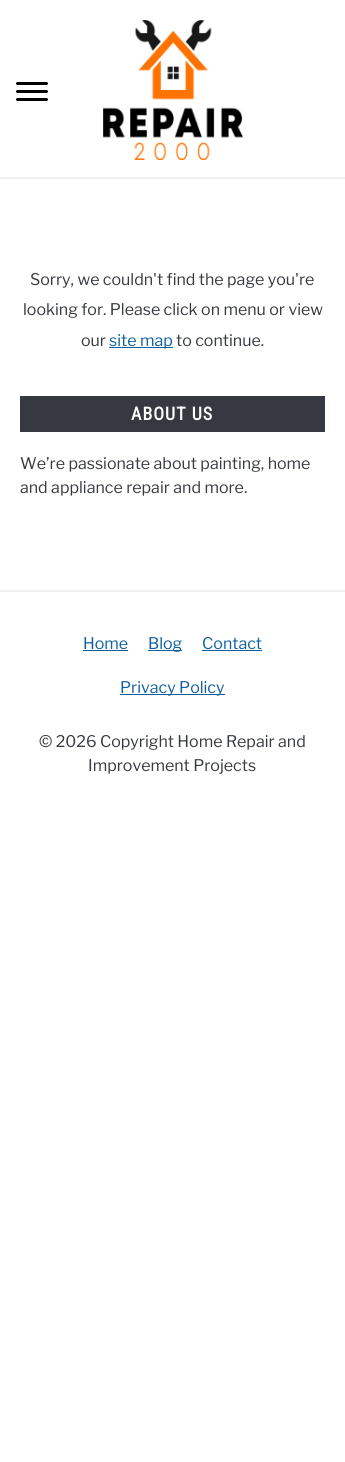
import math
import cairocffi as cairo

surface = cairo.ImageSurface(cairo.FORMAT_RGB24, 345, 1462)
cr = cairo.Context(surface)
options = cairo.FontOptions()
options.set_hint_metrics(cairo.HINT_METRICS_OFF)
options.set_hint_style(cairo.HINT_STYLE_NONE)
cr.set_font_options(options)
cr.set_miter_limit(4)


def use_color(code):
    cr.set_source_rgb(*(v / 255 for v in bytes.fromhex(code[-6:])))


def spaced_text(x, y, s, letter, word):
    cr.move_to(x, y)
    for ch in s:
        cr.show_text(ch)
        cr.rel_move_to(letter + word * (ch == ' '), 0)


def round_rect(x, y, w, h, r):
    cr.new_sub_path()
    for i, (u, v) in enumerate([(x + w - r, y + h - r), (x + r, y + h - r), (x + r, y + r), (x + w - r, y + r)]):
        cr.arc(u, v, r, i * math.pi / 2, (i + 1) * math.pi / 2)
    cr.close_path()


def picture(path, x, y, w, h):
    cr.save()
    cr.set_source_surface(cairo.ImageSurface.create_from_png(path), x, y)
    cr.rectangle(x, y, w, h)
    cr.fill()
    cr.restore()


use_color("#ffffff")
cr.paint()
use_color("#000000")
round_rect(16, 90, 32, 3, 1.5)
cr.fill()
round_rect(16, 82, 32, 3, 1.5)
cr.fill()
round_rect(16, 98, 32, 3, 1.5)
cr.fill()
picture("img1.png", 103, 20, 140, 140)
use_color("#f0f0f0")
cr.rectangle(0, 177, 345, 2)
cr.fill()
cr.select_font_face("Libre Franklin")
cr.set_font_size(16)
use_color("#363940")
cr.move_to(30, 285)
cr.show_text("Sorry, we couldn't find the page you're")
cr.move_to(23, 315)
cr.show_text("looking for. Please click on menu or view")
cr.move_to(81, 346)
cr.show_text("our")
use_color("#0f5f9f")
cr.rectangle(109, 347, 64, 1)
cr.fill()
cr.move_to(109, 346)
cr.show_text("site map")
use_color("#363940")
cr.move_to(176, 346)
cr.show_text("to continue.")
cr.rectangle(20, 396, 305, 36)
cr.fill()
cr.select_font_face("Roboto Condensed", cairo.FONT_SLANT_NORMAL, cairo.FONT_WEIGHT_BOLD)
cr.set_font_size(18)
use_color("#ffffff")
spaced_text(131, 420, "ABOUT US", 1, 0)
cr.select_font_face("Libre Franklin")
cr.set_font_size(16)
use_color("#363940")
cr.move_to(20, 469)
cr.show_text("We’re passionate about painting, home")
cr.move_to(20, 493)
cr.show_text("and appliance repair and more.")
use_color("#f0f0f0")
cr.rectangle(0, 590, 345, 2)
cr.fill()
use_color("#0f5f9f")
cr.move_to(83, 649)
cr.show_text("Home")
cr.rectangle(83, 650, 45, 1)
cr.fill()
cr.rectangle(148, 650, 34, 1)
cr.fill()
cr.move_to(148, 649)
cr.show_text("Blog")
cr.move_to(202, 649)
cr.show_text("Contact")
cr.rectangle(202, 650, 60, 1)
cr.fill()
cr.rectangle(120, 694, 105, 1)
cr.fill()
cr.move_to(120, 693)
cr.show_text("Privacy Policy")
use_color("#363940")
cr.move_to(39, 747)
cr.show_text("© 2026 Copyright Home Repair and")
cr.move_to(88, 771)
cr.show_text("Improvement Projects")
surface.write_to_png("result.png")
